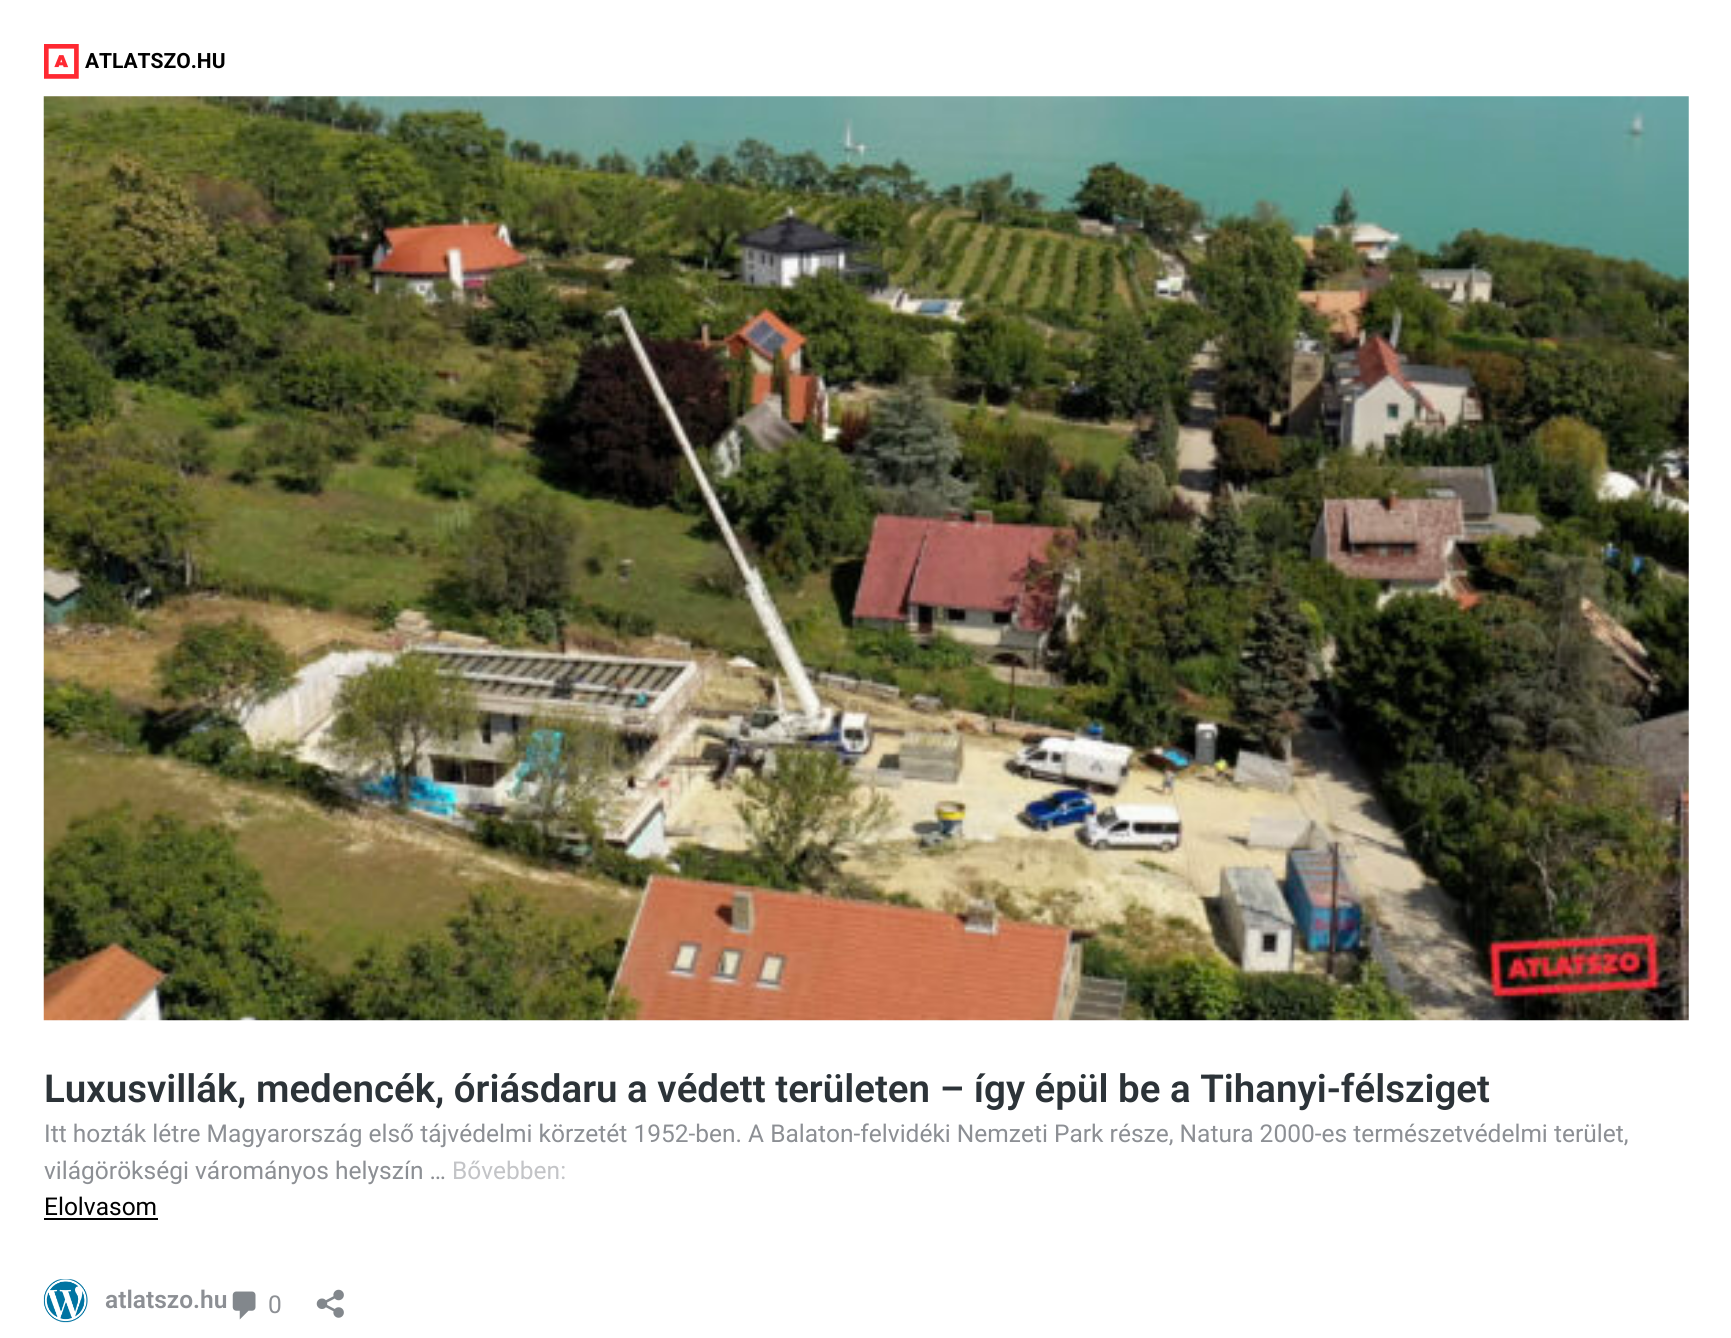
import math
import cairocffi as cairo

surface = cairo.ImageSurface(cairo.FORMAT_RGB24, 1731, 1338)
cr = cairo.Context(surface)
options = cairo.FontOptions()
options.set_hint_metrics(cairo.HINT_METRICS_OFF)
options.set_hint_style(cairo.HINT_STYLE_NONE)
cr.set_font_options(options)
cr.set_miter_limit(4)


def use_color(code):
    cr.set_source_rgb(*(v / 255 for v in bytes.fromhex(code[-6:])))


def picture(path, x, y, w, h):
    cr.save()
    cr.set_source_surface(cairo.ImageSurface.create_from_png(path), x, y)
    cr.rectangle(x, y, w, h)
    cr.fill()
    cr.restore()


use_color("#ffffff")
cr.paint()
picture("img1.png", 44, 44, 35, 35)
cr.select_font_face("Roboto", cairo.FONT_SLANT_NORMAL, cairo.FONT_WEIGHT_BOLD)
cr.set_font_size(21)
use_color("#000000")
cr.move_to(85, 68)
cr.show_text("ATLATSZO.HU")
picture("img2.png", 43, 96, 1646, 925)
cr.select_font_face("Roboto SemiBold")
cr.set_font_size(38.5)
use_color("#2c3338")
cr.move_to(44, 1102)
cr.show_text("Luxusvillák, medencék, óriásdaru a védett területen – így épül be a Tihanyi-félsziget")
cr.select_font_face("Roboto")
cr.set_font_size(24.5)
use_color("#8c8f94")
cr.move_to(44, 1142)
cr.show_text("Itt hozták létre Magyarország első tájvédelmi körzetét 1952-ben. A Balaton-felvidéki Nemzeti Park része, Natura 2000-es természetvédelmi terület,")
cr.move_to(44, 1179)
cr.show_text("világörökségi várományos helyszín …")
use_color("#c3c4c7")
cr.move_to(452, 1179)
cr.show_text("Bővebben:")
use_color("#000000")
cr.move_to(44, 1215)
cr.show_text("Elolvasom")
cr.rectangle(44, 1218, 114, 2)
cr.fill()
picture("img3.png", 43, 1279, 45, 44)
cr.select_font_face("Roboto SemiBold")
use_color("#8c8f94")
cr.move_to(105, 1308)
cr.show_text("atlatszo.hu")
picture("img4.png", 232, 1291, 24, 29)
cr.select_font_face("Roboto")
cr.move_to(268, 1313)
cr.show_text("0")
picture("img5.png", 316, 1289, 28, 29)
surface.write_to_png("result.png")
